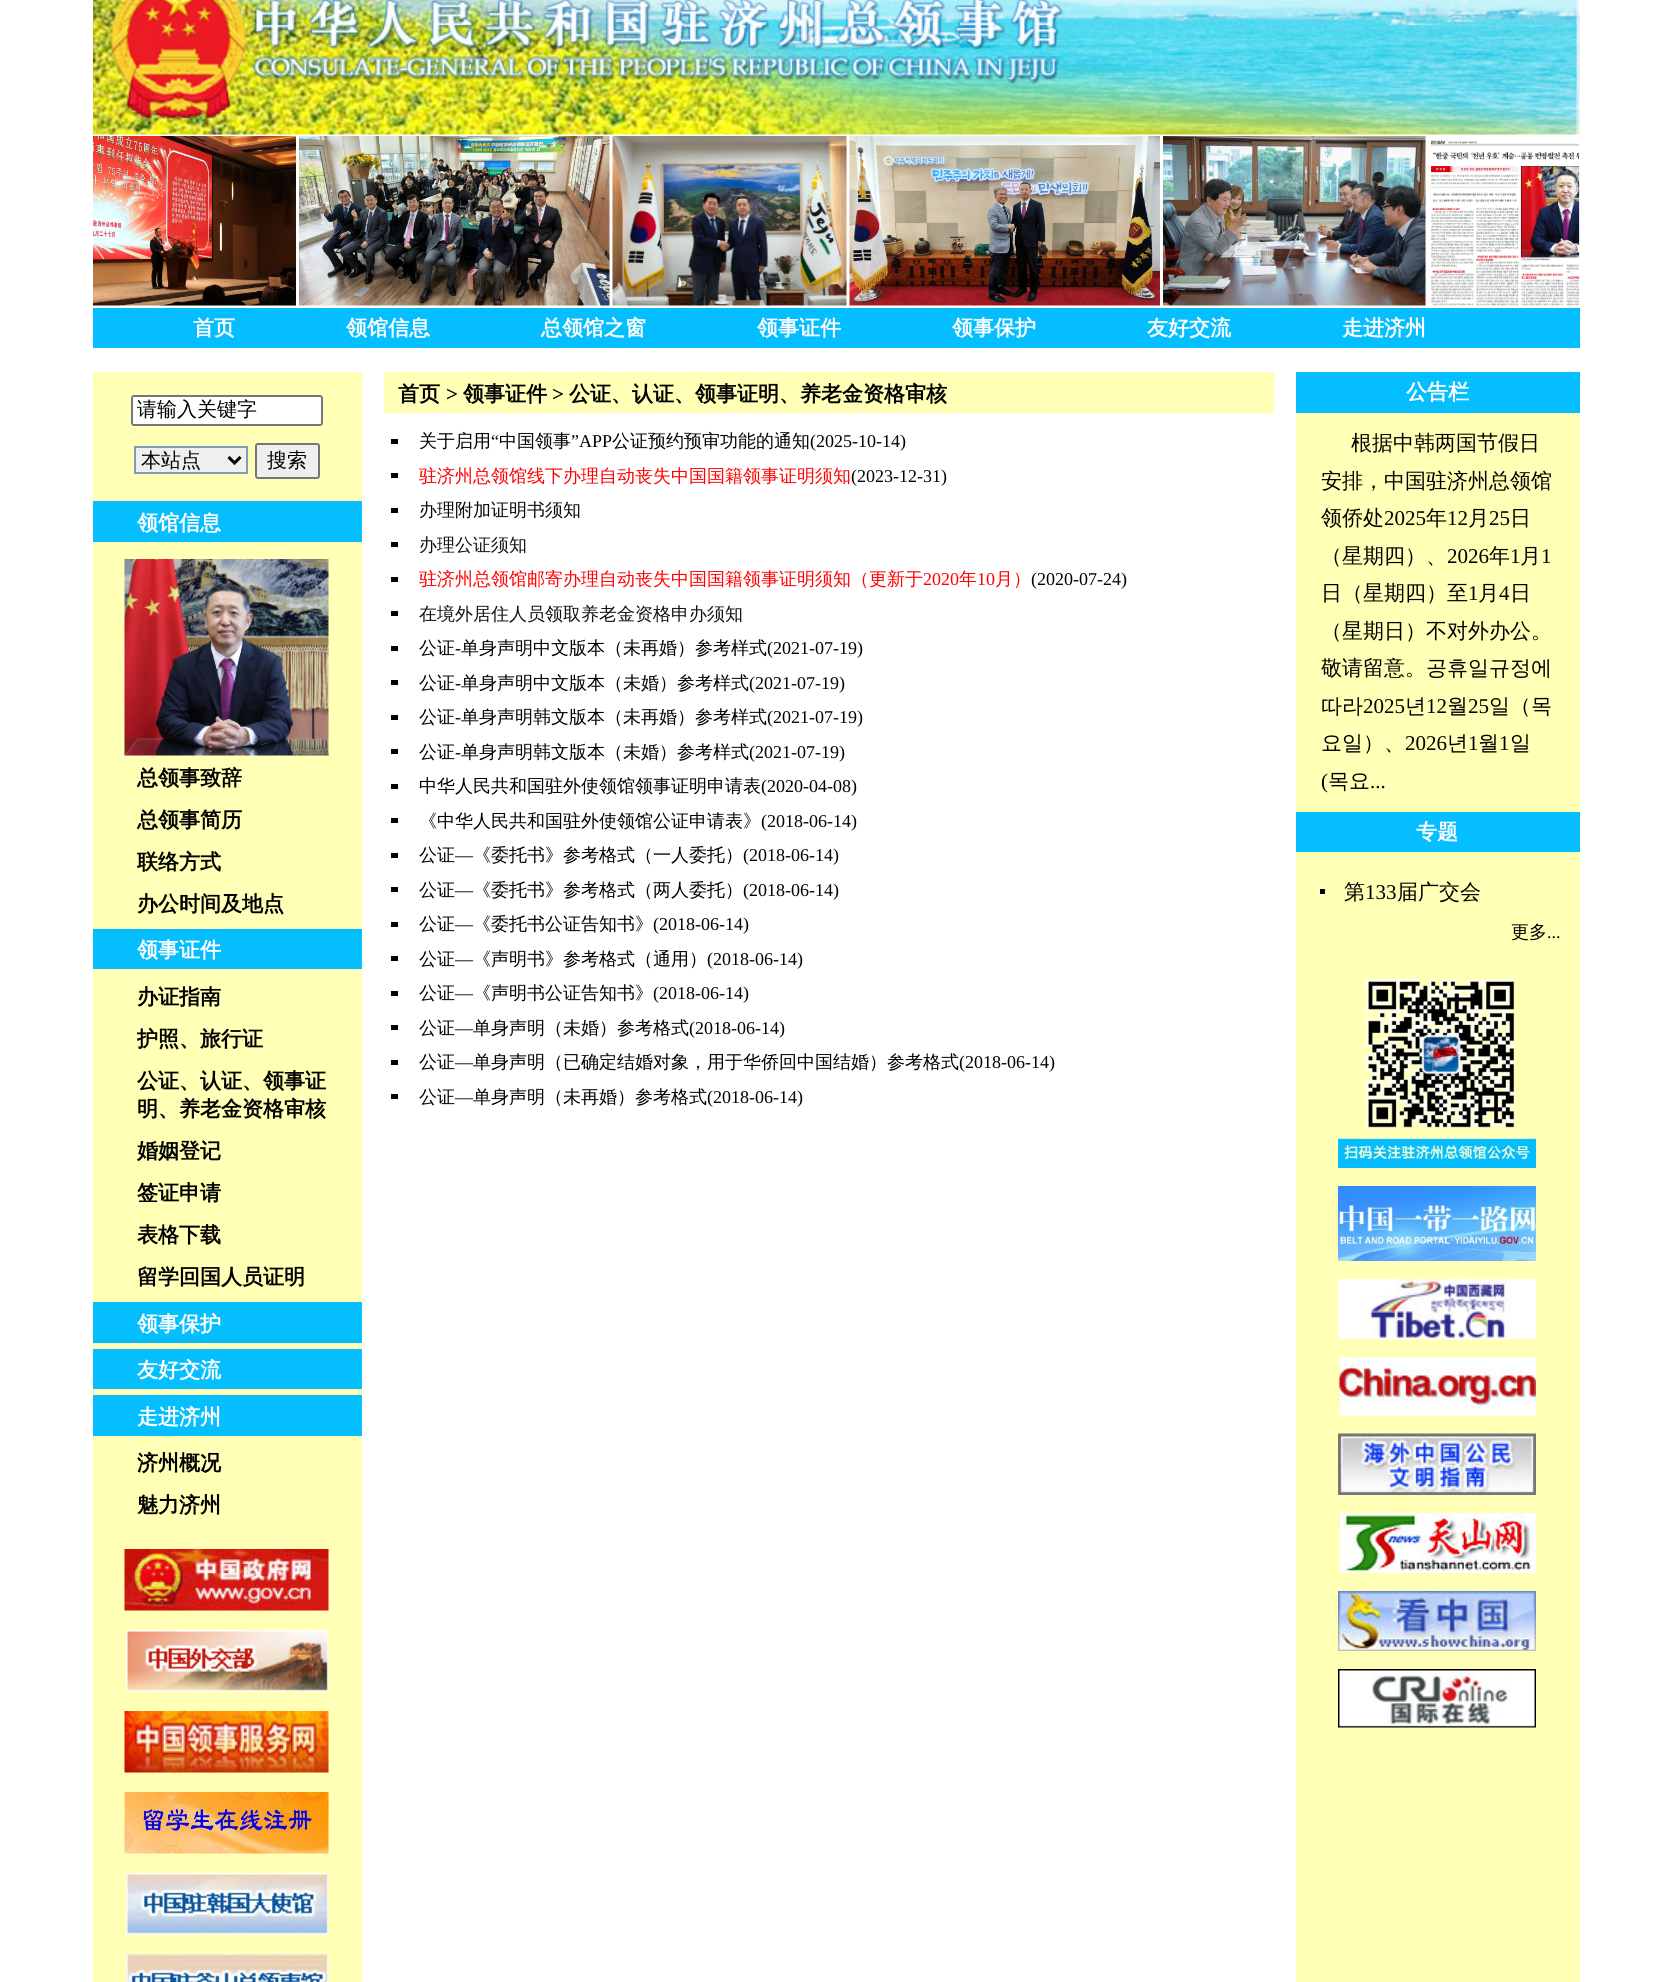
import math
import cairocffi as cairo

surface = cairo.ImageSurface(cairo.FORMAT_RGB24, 1670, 1982)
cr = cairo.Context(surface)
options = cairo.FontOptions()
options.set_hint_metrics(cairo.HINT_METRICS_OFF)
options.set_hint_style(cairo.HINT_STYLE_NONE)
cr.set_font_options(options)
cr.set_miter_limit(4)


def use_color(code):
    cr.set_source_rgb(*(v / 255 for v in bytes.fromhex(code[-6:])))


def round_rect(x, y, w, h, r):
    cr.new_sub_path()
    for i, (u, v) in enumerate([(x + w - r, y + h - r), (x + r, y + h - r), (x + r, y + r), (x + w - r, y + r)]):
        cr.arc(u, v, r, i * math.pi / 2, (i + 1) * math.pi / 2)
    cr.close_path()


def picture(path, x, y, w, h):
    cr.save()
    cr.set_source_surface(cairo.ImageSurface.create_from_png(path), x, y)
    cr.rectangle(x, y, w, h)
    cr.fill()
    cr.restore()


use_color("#ffffff")
cr.paint()
picture("img1.png", 93, 0, 1487, 135)
picture("img2.png", 93, 136, 1487, 170)
use_color("#05beff")
cr.rectangle(93, 308, 1487, 40)
cr.fill()
cr.select_font_face("WenQuanYi Zen Hei", cairo.FONT_SLANT_NORMAL, cairo.FONT_WEIGHT_BOLD)
cr.set_font_size(21)
use_color("#ffffff")
cr.move_to(193, 335)
cr.show_text("首页")
cr.move_to(346, 335)
cr.show_text("领馆信息")
cr.move_to(541, 335)
cr.show_text("总领馆之窗")
cr.move_to(757, 335)
cr.show_text("领事证件")
cr.move_to(952, 335)
cr.show_text("领事保护")
cr.move_to(1147, 335)
cr.show_text("友好交流")
cr.move_to(1342, 335)
cr.show_text("走进济州")
use_color("#ffffb5")
cr.rectangle(93, 372, 269, 1610)
cr.fill()
use_color("#ffffff")
round_rect(132, 396, 190, 29, 2)
cr.fill_preserve()
use_color("#767676")
cr.stroke()
cr.select_font_face("WenQuanYi Zen Hei Medium")
cr.set_font_size(20)
use_color("#000000")
cr.move_to(137, 416)
cr.show_text("请输入关键字")
use_color("#efefef")
cr.rectangle(135, 447, 112, 26)
cr.fill_preserve()
use_color("#7f9db9")
cr.stroke()
cr.new_path()
cr.move_to(228.5, 457)
cr.line_to(234.5, 463)
cr.line_to(240.5, 457)
use_color("#000000")
cr.set_line_width(3)
cr.stroke()
cr.move_to(141, 467)
cr.show_text("本站点")
use_color("#efefef")
round_rect(256, 444, 63, 34, 2)
cr.fill_preserve()
use_color("#767676")
cr.set_line_width(2)
cr.stroke()
use_color("#000000")
cr.move_to(267, 467)
cr.show_text("搜索")
use_color("#05beff")
cr.rectangle(93, 501, 269, 41)
cr.fill()
cr.select_font_face("WenQuanYi Zen Hei", cairo.FONT_SLANT_NORMAL, cairo.FONT_WEIGHT_BOLD)
cr.set_font_size(21)
use_color("#ffffff")
cr.move_to(137, 530)
cr.show_text("领馆信息")
picture("img3.png", 124, 559, 205, 197)
use_color("#000000")
cr.move_to(137, 785)
cr.show_text("总领事致辞")
cr.move_to(137, 827)
cr.show_text("总领事简历")
cr.move_to(137, 869)
cr.show_text("联络方式")
cr.move_to(137, 911)
cr.show_text("办公时间及地点")
use_color("#05beff")
cr.rectangle(93, 929, 269, 40)
cr.fill()
use_color("#ffffff")
cr.move_to(137, 957)
cr.show_text("领事证件")
use_color("#000000")
cr.move_to(137, 1004)
cr.show_text("办证指南")
cr.move_to(137, 1046)
cr.show_text("护照、旅行证")
cr.move_to(137, 1088)
cr.show_text("公证、认证、领事证")
cr.move_to(137, 1116)
cr.show_text("明、养老金资格审核")
cr.move_to(137, 1158)
cr.show_text("婚姻登记")
cr.move_to(137, 1200)
cr.show_text("签证申请")
cr.move_to(137, 1242)
cr.show_text("表格下载")
cr.move_to(137, 1284)
cr.show_text("留学回国人员证明")
use_color("#05beff")
cr.rectangle(93, 1302, 269, 41)
cr.fill()
use_color("#ffffff")
cr.move_to(137, 1331)
cr.show_text("领事保护")
use_color("#05beff")
cr.rectangle(93, 1349, 269, 40)
cr.fill()
use_color("#ffffff")
cr.move_to(137, 1377)
cr.show_text("友好交流")
use_color("#05beff")
cr.rectangle(93, 1395, 269, 41)
cr.fill()
use_color("#ffffff")
cr.move_to(137, 1424)
cr.show_text("走进济州")
use_color("#000000")
cr.move_to(137, 1470)
cr.show_text("济州概况")
cr.move_to(137, 1512)
cr.show_text("魅力济州")
picture("img4.png", 124, 1549, 205, 62)
picture("img5.png", 124, 1630, 205, 62)
picture("img6.png", 124, 1711, 205, 62)
picture("img7.png", 124, 1792, 205, 62)
picture("img8.png", 124, 1873, 205, 62)
picture("img9.png", 124, 1954, 205, 28)
use_color("#ffffb5")
cr.rectangle(384, 372, 890, 41)
cr.fill()
use_color("#000000")
cr.move_to(398, 401)
cr.show_text("首页")
cr.select_font_face("Liberation Serif", cairo.FONT_SLANT_NORMAL, cairo.FONT_WEIGHT_BOLD)
cr.move_to(446, 401)
cr.show_text(">")
cr.select_font_face("WenQuanYi Zen Hei", cairo.FONT_SLANT_NORMAL, cairo.FONT_WEIGHT_BOLD)
cr.move_to(463, 401)
cr.show_text("领事证件")
cr.select_font_face("Liberation Serif", cairo.FONT_SLANT_NORMAL, cairo.FONT_WEIGHT_BOLD)
cr.move_to(552, 401)
cr.show_text(">")
cr.select_font_face("WenQuanYi Zen Hei", cairo.FONT_SLANT_NORMAL, cairo.FONT_WEIGHT_BOLD)
cr.move_to(569, 401)
cr.show_text("公证、认证、领事证明、养老金资格审核")
use_color("#010101")
cr.rectangle(391, 439, 7, 5)
cr.fill()
cr.select_font_face("WenQuanYi Zen Hei Medium")
cr.set_font_size(18)
use_color("#000000")
cr.move_to(419, 447)
cr.show_text("关于启用")
cr.select_font_face("Liberation Serif")
cr.move_to(491, 447)
cr.show_text("“")
cr.select_font_face("WenQuanYi Zen Hei Medium")
cr.move_to(499, 447)
cr.show_text("中国领事")
cr.select_font_face("Liberation Serif")
cr.move_to(571, 447)
cr.show_text("”APP")
cr.select_font_face("WenQuanYi Zen Hei Medium")
cr.move_to(612, 447)
cr.show_text("公证预约预审功能的通知")
cr.select_font_face("Liberation Serif")
cr.move_to(810, 447)
cr.show_text("(2025-10-14)")
use_color("#010101")
cr.rectangle(391, 473, 7, 5)
cr.fill()
cr.select_font_face("WenQuanYi Zen Hei Medium")
use_color("#ff0000")
cr.move_to(419, 482)
cr.show_text("驻济州总领馆线下办理自动丧失中国国籍领事证明须知")
cr.select_font_face("Liberation Serif")
use_color("#000000")
cr.move_to(851, 482)
cr.show_text("(2023-12-31)")
use_color("#010101")
cr.rectangle(391, 508, 7, 5)
cr.fill()
cr.select_font_face("WenQuanYi Zen Hei Medium")
use_color("#090909")
cr.move_to(419, 516)
cr.show_text("办理附加证明书须知")
use_color("#010101")
cr.rectangle(391, 542, 7, 5)
cr.fill()
use_color("#121212")
cr.move_to(419, 551)
cr.show_text("办理公证须知")
use_color("#010101")
cr.rectangle(391, 577, 7, 5)
cr.fill()
use_color("#ff0000")
cr.move_to(419, 585)
cr.show_text("驻济州总领馆邮寄办理自动丧失中国国籍领事证明须知（更新于")
cr.select_font_face("Liberation Serif")
cr.move_to(923, 585)
cr.show_text("2020")
cr.select_font_face("WenQuanYi Zen Hei Medium")
cr.move_to(959, 585)
cr.show_text("年")
cr.select_font_face("Liberation Serif")
cr.move_to(977, 585)
cr.show_text("10")
cr.select_font_face("WenQuanYi Zen Hei Medium")
cr.move_to(995, 585)
cr.show_text("月）")
cr.select_font_face("Liberation Serif")
use_color("#000000")
cr.move_to(1031, 585)
cr.show_text("(2020-07-24)")
use_color("#010101")
cr.rectangle(391, 611, 7, 5)
cr.fill()
cr.select_font_face("WenQuanYi Zen Hei Medium")
use_color("#121212")
cr.move_to(419, 620)
cr.show_text("在境外居住人员领取养老金资格申办须知")
use_color("#010101")
cr.rectangle(391, 646, 7, 5)
cr.fill()
use_color("#000000")
cr.move_to(419, 654)
cr.show_text("公证")
cr.select_font_face("Liberation Serif")
cr.move_to(455, 654)
cr.show_text("-")
cr.select_font_face("WenQuanYi Zen Hei Medium")
cr.move_to(461, 654)
cr.show_text("单身声明中文版本（未再婚）参考样式")
cr.select_font_face("Liberation Serif")
cr.move_to(767, 654)
cr.show_text("(2021-07-19)")
use_color("#010101")
cr.rectangle(391, 680, 7, 5)
cr.fill()
cr.select_font_face("WenQuanYi Zen Hei Medium")
use_color("#000000")
cr.move_to(419, 689)
cr.show_text("公证")
cr.select_font_face("Liberation Serif")
cr.move_to(455, 689)
cr.show_text("-")
cr.select_font_face("WenQuanYi Zen Hei Medium")
cr.move_to(461, 689)
cr.show_text("单身声明中文版本（未婚）参考样式")
cr.select_font_face("Liberation Serif")
cr.move_to(749, 689)
cr.show_text("(2021-07-19)")
use_color("#010101")
cr.rectangle(391, 715, 7, 5)
cr.fill()
cr.select_font_face("WenQuanYi Zen Hei Medium")
use_color("#000000")
cr.move_to(419, 723)
cr.show_text("公证")
cr.select_font_face("Liberation Serif")
cr.move_to(455, 723)
cr.show_text("-")
cr.select_font_face("WenQuanYi Zen Hei Medium")
cr.move_to(461, 723)
cr.show_text("单身声明韩文版本（未再婚）参考样式")
cr.select_font_face("Liberation Serif")
cr.move_to(767, 723)
cr.show_text("(2021-07-19)")
use_color("#010101")
cr.rectangle(391, 749, 7, 5)
cr.fill()
cr.select_font_face("WenQuanYi Zen Hei Medium")
use_color("#000000")
cr.move_to(419, 758)
cr.show_text("公证")
cr.select_font_face("Liberation Serif")
cr.move_to(455, 758)
cr.show_text("-")
cr.select_font_face("WenQuanYi Zen Hei Medium")
cr.move_to(461, 758)
cr.show_text("单身声明韩文版本（未婚）参考样式")
cr.select_font_face("Liberation Serif")
cr.move_to(749, 758)
cr.show_text("(2021-07-19)")
use_color("#010101")
cr.rectangle(391, 784, 7, 5)
cr.fill()
cr.select_font_face("WenQuanYi Zen Hei Medium")
use_color("#000000")
cr.move_to(419, 792)
cr.show_text("中华人民共和国驻外使领馆领事证明申请表")
cr.select_font_face("Liberation Serif")
cr.move_to(761, 792)
cr.show_text("(2020-04-08)")
use_color("#010101")
cr.rectangle(391, 818, 7, 5)
cr.fill()
cr.select_font_face("WenQuanYi Zen Hei Medium")
use_color("#000000")
cr.move_to(419, 827)
cr.show_text("《中华人民共和国驻外使领馆公证申请表》")
cr.select_font_face("Liberation Serif")
cr.move_to(761, 827)
cr.show_text("(2018-06-14)")
use_color("#010101")
cr.rectangle(391, 853, 7, 5)
cr.fill()
cr.select_font_face("WenQuanYi Zen Hei Medium")
use_color("#000000")
cr.move_to(419, 861)
cr.show_text("公证")
cr.select_font_face("Liberation Serif")
cr.move_to(455, 861)
cr.show_text("—")
cr.select_font_face("WenQuanYi Zen Hei Medium")
cr.move_to(473, 861)
cr.show_text("《委托书》参考格式（一人委托）")
cr.select_font_face("Liberation Serif")
cr.move_to(743, 861)
cr.show_text("(2018-06-14)")
use_color("#010101")
cr.rectangle(391, 887, 7, 5)
cr.fill()
cr.select_font_face("WenQuanYi Zen Hei Medium")
use_color("#000000")
cr.move_to(419, 896)
cr.show_text("公证")
cr.select_font_face("Liberation Serif")
cr.move_to(455, 896)
cr.show_text("—")
cr.select_font_face("WenQuanYi Zen Hei Medium")
cr.move_to(473, 896)
cr.show_text("《委托书》参考格式（两人委托）")
cr.select_font_face("Liberation Serif")
cr.move_to(743, 896)
cr.show_text("(2018-06-14)")
use_color("#010101")
cr.rectangle(391, 922, 7, 5)
cr.fill()
cr.select_font_face("WenQuanYi Zen Hei Medium")
use_color("#000000")
cr.move_to(419, 930)
cr.show_text("公证")
cr.select_font_face("Liberation Serif")
cr.move_to(455, 930)
cr.show_text("—")
cr.select_font_face("WenQuanYi Zen Hei Medium")
cr.move_to(473, 930)
cr.show_text("《委托书公证告知书》")
cr.select_font_face("Liberation Serif")
cr.move_to(653, 930)
cr.show_text("(2018-06-14)")
use_color("#010101")
cr.rectangle(391, 956, 7, 5)
cr.fill()
cr.select_font_face("WenQuanYi Zen Hei Medium")
use_color("#000000")
cr.move_to(419, 965)
cr.show_text("公证")
cr.select_font_face("Liberation Serif")
cr.move_to(455, 965)
cr.show_text("—")
cr.select_font_face("WenQuanYi Zen Hei Medium")
cr.move_to(473, 965)
cr.show_text("《声明书》参考格式（通用）")
cr.select_font_face("Liberation Serif")
cr.move_to(707, 965)
cr.show_text("(2018-06-14)")
use_color("#010101")
cr.rectangle(391, 991, 7, 5)
cr.fill()
cr.select_font_face("WenQuanYi Zen Hei Medium")
use_color("#000000")
cr.move_to(419, 999)
cr.show_text("公证")
cr.select_font_face("Liberation Serif")
cr.move_to(455, 999)
cr.show_text("—")
cr.select_font_face("WenQuanYi Zen Hei Medium")
cr.move_to(473, 999)
cr.show_text("《声明书公证告知书》")
cr.select_font_face("Liberation Serif")
cr.move_to(653, 999)
cr.show_text("(2018-06-14)")
use_color("#010101")
cr.rectangle(391, 1025, 7, 5)
cr.fill()
cr.select_font_face("WenQuanYi Zen Hei Medium")
use_color("#000000")
cr.move_to(419, 1034)
cr.show_text("公证")
cr.select_font_face("Liberation Serif")
cr.move_to(455, 1034)
cr.show_text("—")
cr.select_font_face("WenQuanYi Zen Hei Medium")
cr.move_to(473, 1034)
cr.show_text("单身声明（未婚）参考格式")
cr.select_font_face("Liberation Serif")
cr.move_to(689, 1034)
cr.show_text("(2018-06-14)")
use_color("#010101")
cr.rectangle(391, 1060, 7, 5)
cr.fill()
cr.select_font_face("WenQuanYi Zen Hei Medium")
use_color("#000000")
cr.move_to(419, 1068)
cr.show_text("公证")
cr.select_font_face("Liberation Serif")
cr.move_to(455, 1068)
cr.show_text("—")
cr.select_font_face("WenQuanYi Zen Hei Medium")
cr.move_to(473, 1068)
cr.show_text("单身声明（已确定结婚对象，用于华侨回中国结婚）参考格式")
cr.select_font_face("Liberation Serif")
cr.move_to(959, 1068)
cr.show_text("(2018-06-14)")
use_color("#010101")
cr.rectangle(391, 1094, 7, 5)
cr.fill()
cr.select_font_face("WenQuanYi Zen Hei Medium")
use_color("#000000")
cr.move_to(419, 1103)
cr.show_text("公证")
cr.select_font_face("Liberation Serif")
cr.move_to(455, 1103)
cr.show_text("—")
cr.select_font_face("WenQuanYi Zen Hei Medium")
cr.move_to(473, 1103)
cr.show_text("单身声明（未再婚）参考格式")
cr.select_font_face("Liberation Serif")
cr.move_to(707, 1103)
cr.show_text("(2018-06-14)")
use_color("#ffffb5")
cr.rectangle(1296, 413, 284, 1569)
cr.fill()
use_color("#05beff")
cr.rectangle(1296, 372, 284, 41)
cr.fill()
cr.select_font_face("WenQuanYi Zen Hei", cairo.FONT_SLANT_NORMAL, cairo.FONT_WEIGHT_BOLD)
cr.set_font_size(21)
use_color("#ffffff")
cr.move_to(1406, 399)
cr.show_text("公告栏")
cr.select_font_face("WenQuanYi Zen Hei Medium")
use_color("#000000")
cr.move_to(1351, 450)
cr.show_text("根据中韩两国节假日")
cr.move_to(1321, 488)
cr.show_text("安排，中国驻济州总领馆")
cr.move_to(1321, 525)
cr.show_text("领侨处")
cr.select_font_face("Liberation Serif")
cr.move_to(1384, 525)
cr.show_text("2025")
cr.select_font_face("WenQuanYi Zen Hei Medium")
cr.move_to(1426, 525)
cr.show_text("年")
cr.select_font_face("Liberation Serif")
cr.move_to(1447, 525)
cr.show_text("12")
cr.select_font_face("WenQuanYi Zen Hei Medium")
cr.move_to(1468, 525)
cr.show_text("月")
cr.select_font_face("Liberation Serif")
cr.move_to(1489, 525)
cr.show_text("25")
cr.select_font_face("WenQuanYi Zen Hei Medium")
cr.move_to(1510, 525)
cr.show_text("日")
cr.move_to(1321, 563)
cr.show_text("（星期四）、")
cr.select_font_face("Liberation Serif")
cr.move_to(1447, 563)
cr.show_text("2026")
cr.select_font_face("WenQuanYi Zen Hei Medium")
cr.move_to(1489, 563)
cr.show_text("年")
cr.select_font_face("Liberation Serif")
cr.move_to(1510, 563)
cr.show_text("1")
cr.select_font_face("WenQuanYi Zen Hei Medium")
cr.move_to(1520, 563)
cr.show_text("月")
cr.select_font_face("Liberation Serif")
cr.move_to(1541, 563)
cr.show_text("1")
cr.select_font_face("WenQuanYi Zen Hei Medium")
cr.move_to(1321, 600)
cr.show_text("日（星期四）至")
cr.select_font_face("Liberation Serif")
cr.move_to(1468, 600)
cr.show_text("1")
cr.select_font_face("WenQuanYi Zen Hei Medium")
cr.move_to(1478, 600)
cr.show_text("月")
cr.select_font_face("Liberation Serif")
cr.move_to(1499, 600)
cr.show_text("4")
cr.select_font_face("WenQuanYi Zen Hei Medium")
cr.move_to(1510, 600)
cr.show_text("日")
cr.move_to(1321, 638)
cr.show_text("（星期日）不对外办公。")
cr.move_to(1321, 675)
cr.show_text("敬请留意。공휴일규정에")
cr.move_to(1321, 713)
cr.show_text("따라")
cr.select_font_face("Liberation Serif")
cr.move_to(1363, 713)
cr.show_text("2025")
cr.select_font_face("WenQuanYi Zen Hei Medium")
cr.move_to(1405, 713)
cr.show_text("년")
cr.select_font_face("Liberation Serif")
cr.move_to(1426, 713)
cr.show_text("12")
cr.select_font_face("WenQuanYi Zen Hei Medium")
cr.move_to(1447, 713)
cr.show_text("월")
cr.select_font_face("Liberation Serif")
cr.move_to(1468, 713)
cr.show_text("25")
cr.select_font_face("WenQuanYi Zen Hei Medium")
cr.move_to(1489, 713)
cr.show_text("일（목")
cr.move_to(1321, 750)
cr.show_text("요일）、")
cr.select_font_face("Liberation Serif")
cr.move_to(1405, 750)
cr.show_text("2026")
cr.select_font_face("WenQuanYi Zen Hei Medium")
cr.move_to(1447, 750)
cr.show_text("년")
cr.select_font_face("Liberation Serif")
cr.move_to(1468, 750)
cr.show_text("1")
cr.select_font_face("WenQuanYi Zen Hei Medium")
cr.move_to(1478, 750)
cr.show_text("월")
cr.select_font_face("Liberation Serif")
cr.move_to(1499, 750)
cr.show_text("1")
cr.select_font_face("WenQuanYi Zen Hei Medium")
cr.move_to(1510, 750)
cr.show_text("일")
cr.select_font_face("Liberation Serif")
cr.move_to(1321, 788)
cr.show_text("(")
cr.select_font_face("WenQuanYi Zen Hei Medium")
cr.move_to(1328, 788)
cr.show_text("목요")
cr.select_font_face("Liberation Serif")
cr.move_to(1370, 788)
cr.show_text("...")
use_color("#05beff")
cr.rectangle(1296, 812, 284, 40)
cr.fill()
cr.select_font_face("WenQuanYi Zen Hei", cairo.FONT_SLANT_NORMAL, cairo.FONT_WEIGHT_BOLD)
use_color("#ffffff")
cr.move_to(1416, 839)
cr.show_text("专题")
use_color("#010101")
cr.rectangle(1320, 889, 5, 5)
cr.fill()
cr.select_font_face("WenQuanYi Zen Hei Medium")
use_color("#000000")
cr.move_to(1344, 899)
cr.show_text("第")
cr.select_font_face("Liberation Serif")
cr.move_to(1365, 899)
cr.show_text("133")
cr.select_font_face("WenQuanYi Zen Hei Medium")
cr.move_to(1397, 899)
cr.show_text("届广交会")
cr.set_font_size(18)
cr.move_to(1511, 938)
cr.show_text("更多")
cr.select_font_face("Liberation Serif")
cr.move_to(1547, 938)
cr.show_text("...")
picture("img10.png", 1338, 975, 198, 193)
picture("img11.png", 1338, 1186, 198, 75)
picture("img12.png", 1338, 1279, 198, 60)
picture("img13.png", 1338, 1357, 198, 59)
picture("img14.png", 1338, 1433, 198, 62)
picture("img15.png", 1338, 1513, 198, 60)
picture("img16.png", 1338, 1591, 198, 60)
picture("img17.png", 1338, 1669, 198, 59)
surface.write_to_png("result.png")
